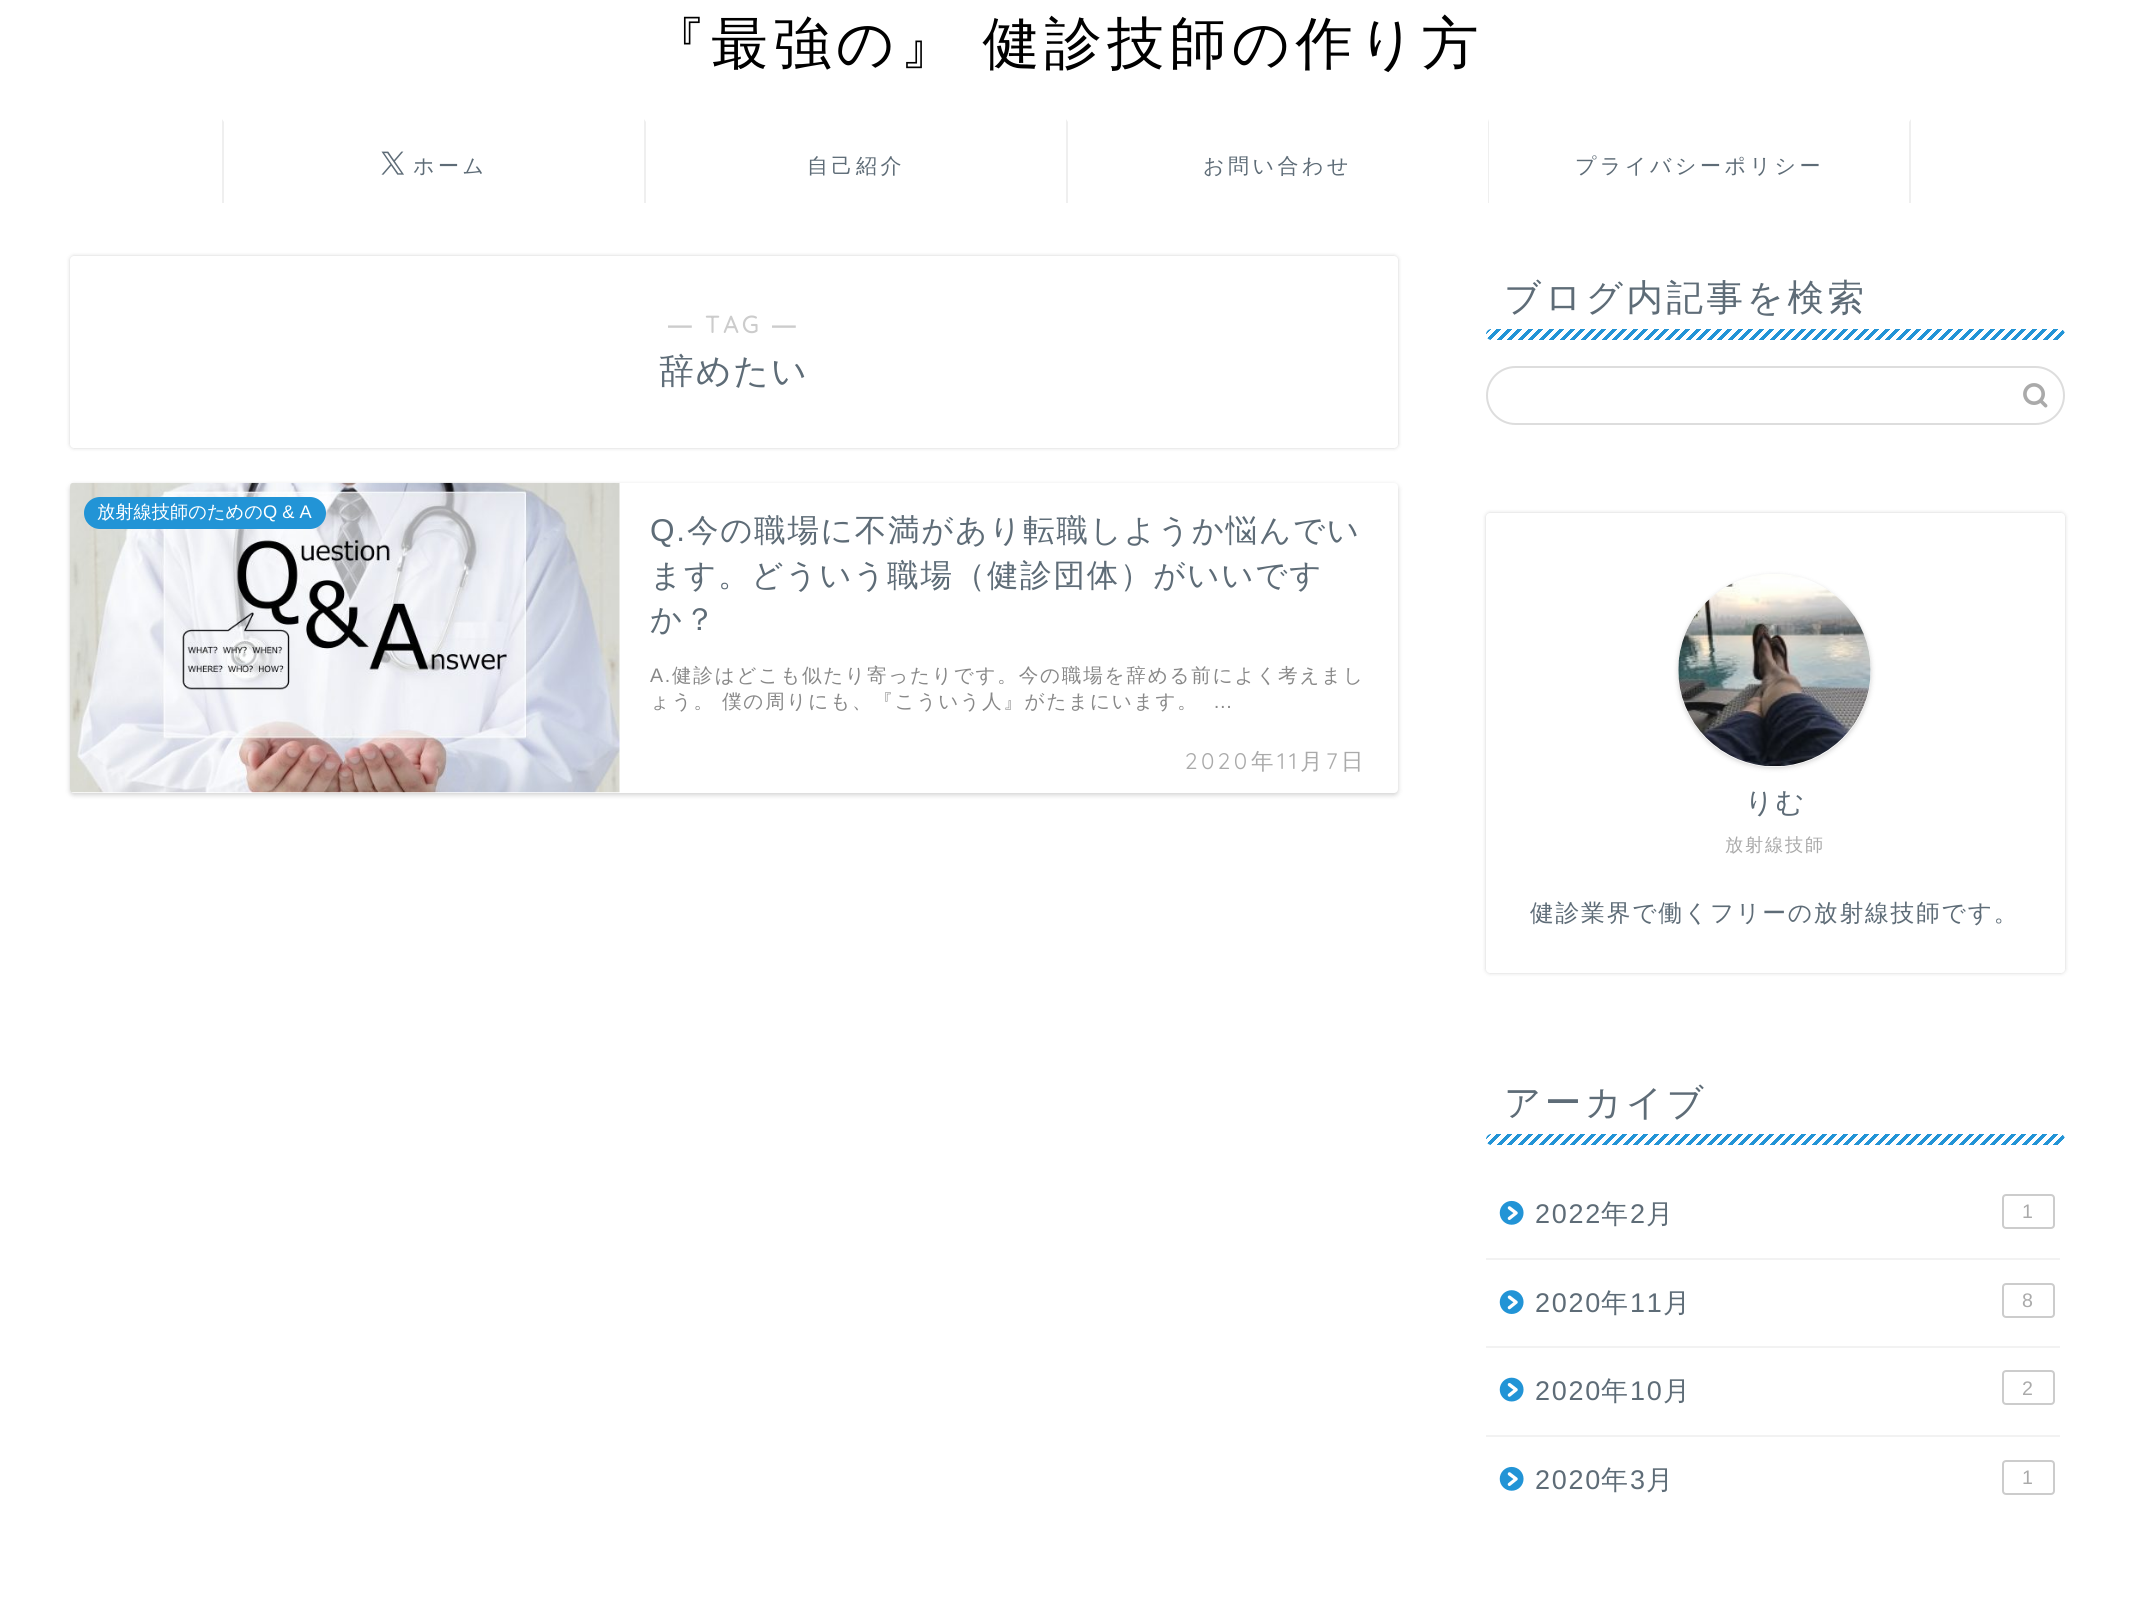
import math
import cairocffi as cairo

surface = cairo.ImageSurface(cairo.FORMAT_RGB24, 2132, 1616)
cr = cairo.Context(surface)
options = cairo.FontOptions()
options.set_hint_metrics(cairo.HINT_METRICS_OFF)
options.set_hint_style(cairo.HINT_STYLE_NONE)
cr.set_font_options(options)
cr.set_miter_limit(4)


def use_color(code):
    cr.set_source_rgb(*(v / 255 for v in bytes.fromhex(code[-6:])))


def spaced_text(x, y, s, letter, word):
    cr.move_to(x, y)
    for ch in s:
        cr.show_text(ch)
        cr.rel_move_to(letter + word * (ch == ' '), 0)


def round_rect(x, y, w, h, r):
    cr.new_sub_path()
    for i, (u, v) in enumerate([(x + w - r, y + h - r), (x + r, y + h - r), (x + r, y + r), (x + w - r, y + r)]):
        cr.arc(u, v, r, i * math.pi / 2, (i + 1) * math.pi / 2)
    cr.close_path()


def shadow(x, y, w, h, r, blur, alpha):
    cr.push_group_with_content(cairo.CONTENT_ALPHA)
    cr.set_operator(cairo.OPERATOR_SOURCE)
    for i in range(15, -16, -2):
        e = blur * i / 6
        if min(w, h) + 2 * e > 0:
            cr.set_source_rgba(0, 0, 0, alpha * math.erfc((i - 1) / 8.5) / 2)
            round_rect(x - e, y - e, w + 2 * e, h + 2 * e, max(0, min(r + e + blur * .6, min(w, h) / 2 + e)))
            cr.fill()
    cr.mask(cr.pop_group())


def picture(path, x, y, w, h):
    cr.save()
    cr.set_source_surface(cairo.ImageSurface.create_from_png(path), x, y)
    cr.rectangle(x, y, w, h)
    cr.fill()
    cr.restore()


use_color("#ffffff")
cr.paint()
cr.select_font_face("WenQuanYi Zen Hei Medium")
cr.set_font_size(57.1)
use_color("#000000")
spaced_text(649, 63, "『最強の』 健診技師の作り方", 5.25, -2)
use_color("#efefef")
cr.new_path()
cr.move_to(222, 203)
cr.line_to(222, 119)
cr.line_to(224, 122)
cr.line_to(224, 203)
cr.close_path()
cr.fill()
picture("img1.png", 381, 151, 23, 24)
cr.set_font_size(21)
use_color("#5e6c77")
spaced_text(413, 173, "ホーム", 3.5, 0)
use_color("#efefef")
cr.new_path()
cr.move_to(644, 203)
cr.line_to(644, 119)
cr.line_to(646, 122)
cr.line_to(646, 203)
cr.close_path()
cr.fill()
use_color("#5e6c77")
spaced_text(807, 173, "自己紹介", 3.5, 0)
use_color("#efefef")
cr.new_path()
cr.move_to(1066, 203)
cr.line_to(1066, 119)
cr.line_to(1068, 122)
cr.line_to(1068, 203)
cr.close_path()
cr.fill()
use_color("#5e6c77")
spaced_text(1203, 173, "お問い合わせ", 3.5, 0)
use_color("#efefef")
cr.new_path()
cr.move_to(1911, 119)
cr.line_to(1911, 203)
cr.line_to(1909, 203)
cr.line_to(1909, 122)
cr.close_path()
cr.fill()
cr.new_path()
cr.move_to(1488, 203)
cr.line_to(1488, 119)
cr.line_to(1489, 122)
cr.line_to(1489, 203)
cr.close_path()
cr.fill()
use_color("#5e6c77")
spaced_text(1575, 173, "プライバシーポリシー", 3.5, 0)
use_color("#000000")
shadow(70, 256, 1328, 192, 4, 2, 0.18)
use_color("#ffffff")
round_rect(70, 256, 1328, 192, 4)
cr.fill()
cr.select_font_face("Liberation Sans", cairo.FONT_SLANT_NORMAL, cairo.FONT_WEIGHT_BOLD)
cr.set_font_size(23.8)
use_color("#cccccc")
spaced_text(668, 333, "―", 3.5, 0)
cr.select_font_face("Quicksand", cairo.FONT_SLANT_NORMAL, cairo.FONT_WEIGHT_BOLD)
spaced_text(705, 333, "TAG", 3.5, 0)
cr.select_font_face("Liberation Sans", cairo.FONT_SLANT_NORMAL, cairo.FONT_WEIGHT_BOLD)
spaced_text(772, 333, "―", 3.5, 0)
cr.select_font_face("WenQuanYi Zen Hei Medium")
cr.set_font_size(35)
use_color("#5e6c77")
spaced_text(659, 383, "辞めたい", 1.75, 0)
use_color("#000000")
shadow(70, 485, 1328, 310, 4, 2.5, 0.18)
use_color("#ffffff")
round_rect(70, 483, 1328, 310, 4)
cr.fill()
picture("img2.png", 70, 482, 550, 311)
use_color("#2294d6")
round_rect(84, 497, 242, 32, 16)
cr.fill()
cr.set_font_size(18.25)
use_color("#ffffff")
cr.move_to(97, 518)
cr.show_text("放射線技師のための")
cr.select_font_face("Liberation Sans")
cr.move_to(263, 518)
cr.show_text("Q & A")
cr.set_font_size(31.5)
use_color("#5e6c77")
spaced_text(650, 541, "Q.", 1.75, 0)
cr.select_font_face("WenQuanYi Zen Hei Medium")
spaced_text(687, 541, "今の職場に不満があり転職しようか悩んでい", 1.75, 0)
spaced_text(650, 586, "ます。どういう職場（健診団体）がいいです", 1.75, 0)
spaced_text(650, 630, "か？", 1.75, 0)
cr.select_font_face("Liberation Sans")
cr.set_font_size(19.6)
use_color("#888888")
spaced_text(650, 682, "A.", 1.75, 0)
cr.select_font_face("WenQuanYi Zen Hei Medium")
spaced_text(672, 682, "健診はどこも似たり寄ったりです。今の職場を辞める前によく考えまし", 1.75, 0)
spaced_text(650, 708, "ょう。", 1.75, 0)
spaced_text(722, 708, "僕の周りにも、『こういう人』がたまにいます。", 1.75, 0)
cr.select_font_face("Liberation Sans")
spaced_text(1213, 708, "…", 1.75, 0)
cr.select_font_face("Quicksand Light")
cr.set_font_size(22.5)
use_color("#aaaaaa")
spaced_text(1185, 769, "2020", 3.5, 0)
cr.select_font_face("WenQuanYi Zen Hei Medium")
spaced_text(1251, 769, "年", 3.5, 0)
cr.select_font_face("Quicksand Light")
spaced_text(1277, 769, "11", 3.5, 0)
cr.select_font_face("WenQuanYi Zen Hei Medium")
spaced_text(1300, 769, "月", 3.5, 0)
cr.select_font_face("Quicksand Light")
spaced_text(1326, 769, "7", 3.5, 0)
cr.select_font_face("WenQuanYi Zen Hei Medium")
spaced_text(1341, 769, "日", 3.5, 0)
cr.set_font_size(36.5)
use_color("#5e6c77")
spaced_text(1504, 310, "ブログ内記事を検索", 3.5, 0)
picture("img3.png", 1486, 329, 579, 11)
round_rect(1487, 367, 577, 57, 28.5)
use_color("#dddddd")
cr.stroke()
picture("img4.png", 2023, 383, 25, 25)
use_color("#000000")
shadow(1486, 513, 579, 460, 4, 2, 0.18)
use_color("#ffffff")
round_rect(1486, 513, 579, 460, 4)
cr.fill()
use_color("#000000")
shadow(1678, 576, 193, 192, 96, 2.5, 0.18)
use_color("#ffffff")
cr.arc(1774.5, 670.5, 96.5, 0, 2 * math.pi)
cr.fill()
picture("img5.png", 1678, 574, 193, 193)
cr.set_font_size(28)
use_color("#5e6c77")
spaced_text(1745, 812, "りむ", 1.75, 0)
cr.set_font_size(18.25)
use_color("#aaaaaa")
spaced_text(1725, 851, "放射線技師", 1.75, 0)
cr.set_font_size(23.8)
use_color("#5e6c77")
spaced_text(1530, 921, "健診業界で働くフリーの放射線技師です。", 1.75, 0)
cr.set_font_size(36.5)
spaced_text(1504, 1115, "アーカイブ", 3.5, 0)
picture("img3.png", 1486, 1134, 579, 11)
use_color("#f2f2f2")
cr.rectangle(1486, 1258, 574, 2)
cr.fill()
picture("img6.png", 1499, 1200, 25, 25)
cr.select_font_face("Liberation Sans")
cr.set_font_size(27)
use_color("#5e6c77")
spaced_text(1535, 1223, "2022", 1.75, 0)
cr.select_font_face("WenQuanYi Zen Hei Medium")
spaced_text(1601, 1223, "年", 1.75, 0)
cr.select_font_face("Liberation Sans")
spaced_text(1630, 1223, "2", 1.75, 0)
cr.select_font_face("WenQuanYi Zen Hei Medium")
spaced_text(1646, 1223, "月", 1.75, 0)
round_rect(2003, 1195, 51, 33, 3)
use_color("#cccccc")
cr.stroke()
cr.select_font_face("Liberation Sans")
cr.set_font_size(19.6)
use_color("#aaaaaa")
cr.move_to(2022, 1218)
cr.show_text("1")
use_color("#f2f2f2")
cr.rectangle(1486, 1346, 574, 2)
cr.fill()
picture("img7.png", 1499, 1290, 25, 24)
cr.set_font_size(27)
use_color("#5e6c77")
spaced_text(1535, 1312, "2020", 1.75, 0)
cr.select_font_face("WenQuanYi Zen Hei Medium")
spaced_text(1601, 1312, "年", 1.75, 0)
cr.select_font_face("Liberation Sans")
spaced_text(1630, 1312, "11", 1.75, 0)
cr.select_font_face("WenQuanYi Zen Hei Medium")
spaced_text(1663, 1312, "月", 1.75, 0)
round_rect(2003, 1284, 51, 33, 3)
use_color("#cccccc")
cr.stroke()
cr.select_font_face("Liberation Sans")
cr.set_font_size(19.6)
use_color("#aaaaaa")
cr.move_to(2022, 1307)
cr.show_text("8")
use_color("#f2f2f2")
cr.rectangle(1486, 1435, 574, 2)
cr.fill()
picture("img8.png", 1499, 1377, 25, 25)
cr.set_font_size(27)
use_color("#5e6c77")
spaced_text(1535, 1400, "2020", 1.75, 0)
cr.select_font_face("WenQuanYi Zen Hei Medium")
spaced_text(1601, 1400, "年", 1.75, 0)
cr.select_font_face("Liberation Sans")
spaced_text(1630, 1400, "10", 1.75, 0)
cr.select_font_face("WenQuanYi Zen Hei Medium")
spaced_text(1663, 1400, "月", 1.75, 0)
round_rect(2003, 1371, 51, 33, 3)
use_color("#cccccc")
cr.stroke()
cr.select_font_face("Liberation Sans")
cr.set_font_size(19.6)
use_color("#aaaaaa")
cr.move_to(2022, 1395)
cr.show_text("2")
picture("img6.png", 1499, 1466, 25, 25)
cr.set_font_size(27)
use_color("#5e6c77")
spaced_text(1535, 1489, "2020", 1.75, 0)
cr.select_font_face("WenQuanYi Zen Hei Medium")
spaced_text(1601, 1489, "年", 1.75, 0)
cr.select_font_face("Liberation Sans")
spaced_text(1630, 1489, "3", 1.75, 0)
cr.select_font_face("WenQuanYi Zen Hei Medium")
spaced_text(1646, 1489, "月", 1.75, 0)
round_rect(2003, 1461, 51, 33, 3)
use_color("#cccccc")
cr.stroke()
cr.select_font_face("Liberation Sans")
cr.set_font_size(19.6)
use_color("#aaaaaa")
cr.move_to(2022, 1484)
cr.show_text("1")
surface.write_to_png("result.png")
